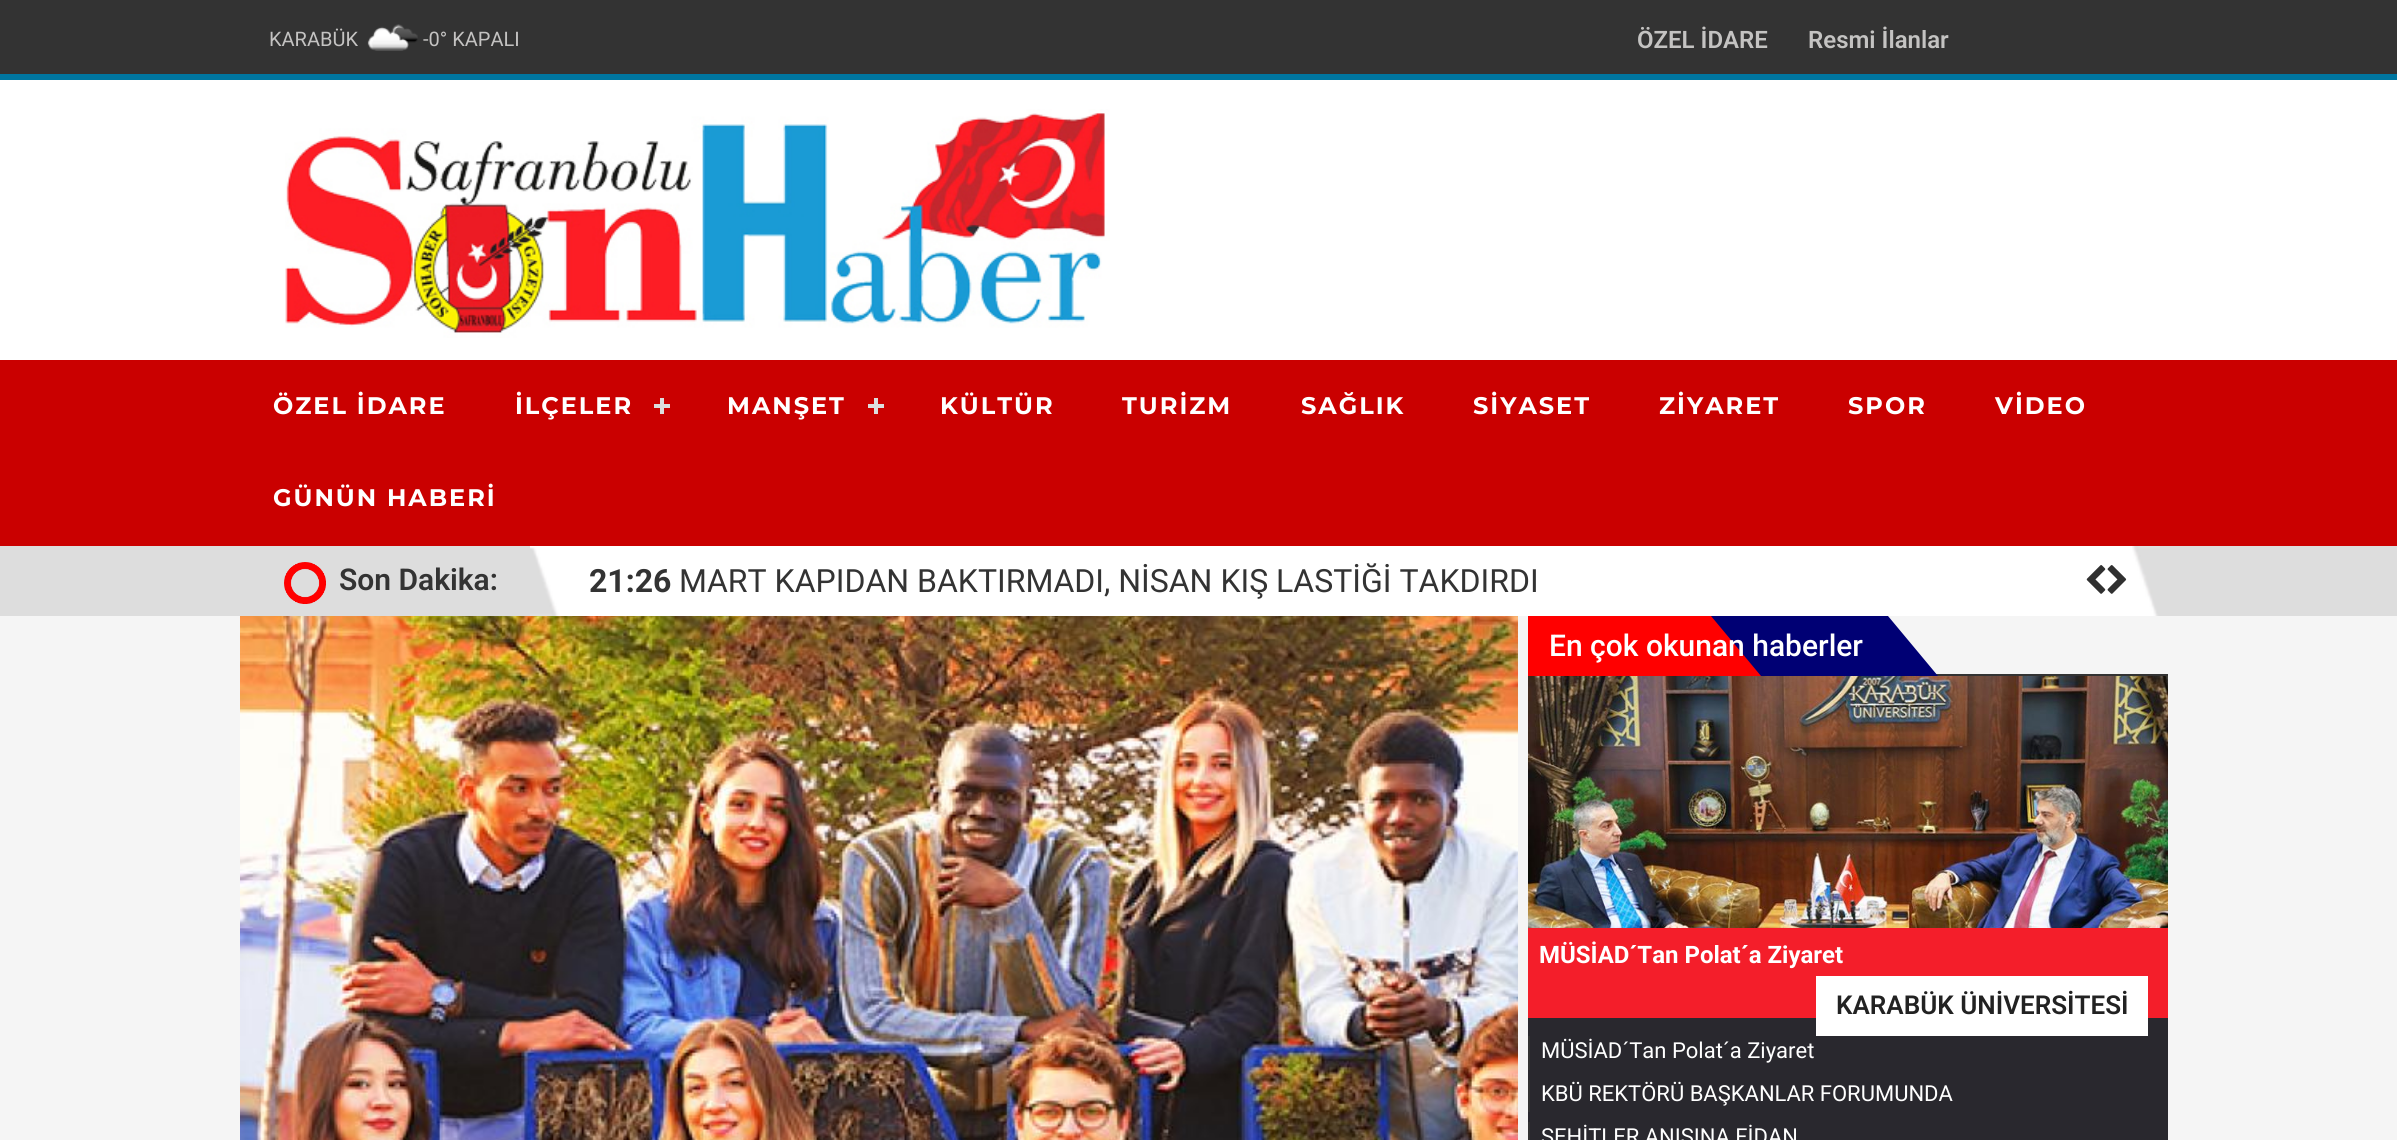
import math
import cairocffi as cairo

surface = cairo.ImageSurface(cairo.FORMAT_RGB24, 2397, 1140)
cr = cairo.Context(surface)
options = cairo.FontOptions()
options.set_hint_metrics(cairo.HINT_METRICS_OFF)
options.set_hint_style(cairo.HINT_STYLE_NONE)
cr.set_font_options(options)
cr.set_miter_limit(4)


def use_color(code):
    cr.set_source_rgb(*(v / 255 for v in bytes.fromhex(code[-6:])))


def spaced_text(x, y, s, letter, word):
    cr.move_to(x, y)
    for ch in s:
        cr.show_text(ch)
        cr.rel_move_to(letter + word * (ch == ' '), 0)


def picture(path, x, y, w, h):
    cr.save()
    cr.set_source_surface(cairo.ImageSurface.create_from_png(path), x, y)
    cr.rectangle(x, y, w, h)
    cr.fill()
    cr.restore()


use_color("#f5f5f5")
cr.paint()
use_color("#333333")
cr.rectangle(0, 0, 2397, 74)
cr.fill()
use_color("#0076a0")
cr.rectangle(0, 74, 2397, 6)
cr.fill()
cr.select_font_face("Roboto")
cr.set_font_size(20)
use_color("#c4c3c2")
cr.move_to(269, 46)
cr.show_text("KARABÜK")
picture("img1.png", 367, 24, 51, 27)
cr.move_to(423, 46)
cr.show_text("-0° KAPALI")
cr.select_font_face("Roboto SemiBold")
cr.set_font_size(24)
cr.move_to(1637, 48)
cr.show_text("ÖZEL İDARE")
cr.move_to(1808, 48)
cr.show_text("Resmi İlanlar")
use_color("#ffffff")
cr.rectangle(0, 80, 2397, 280)
cr.fill()
picture("img2.png", 285, 109, 825, 229)
use_color("#ca0000")
cr.rectangle(0, 360, 2397, 186)
cr.fill()
cr.select_font_face("Montserrat", cairo.FONT_SLANT_NORMAL, cairo.FONT_WEIGHT_BOLD)
use_color("#ffffff")
spaced_text(273, 414, "ÖZEL İDARE", 2, 0)
spaced_text(515, 414, "İLÇELER", 2, 0)
use_color("#dddddd")
cr.rectangle(660, 398, 4, 16)
cr.fill()
cr.rectangle(654, 404, 16, 4)
cr.fill()
use_color("#ffffff")
spaced_text(727, 414, "MANŞET", 2, 0)
use_color("#dddddd")
cr.rectangle(874, 398, 4, 16)
cr.fill()
cr.rectangle(868, 404, 16, 4)
cr.fill()
use_color("#ffffff")
spaced_text(940, 414, "KÜLTÜR", 2, 0)
spaced_text(1122, 414, "TURİZM", 2, 0)
spaced_text(1301, 414, "SAĞLIK", 2, 0)
spaced_text(1473, 414, "SİYASET", 2, 0)
spaced_text(1659, 414, "ZİYARET", 2, 0)
spaced_text(1848, 414, "SPOR", 2, 0)
spaced_text(1995, 414, "VİDEO", 2, 0)
spaced_text(273, 506, "GÜNÜN HABERİ", 2, 0)
use_color("#dddddd")
cr.rectangle(0, 546, 2397, 70)
cr.fill()
picture("img3.png", 530, 546, 30, 70)
picture("img4.png", 284, 562, 42, 42)
cr.select_font_face("Roboto SemiBold")
cr.set_font_size(30)
use_color("#333333")
cr.move_to(339, 590)
cr.show_text("Son Dakika:")
use_color("#ffffff")
cr.rectangle(560, 546, 1572, 70)
cr.fill()
picture("img5.png", 2132, 546, 28, 70)
cr.select_font_face("Roboto", cairo.FONT_SLANT_NORMAL, cairo.FONT_WEIGHT_BOLD)
cr.set_font_size(32)
use_color("#333333")
cr.move_to(589, 592)
cr.show_text("21:26")
cr.select_font_face("Roboto")
cr.move_to(679, 592)
cr.show_text("MART KAPIDAN BAKTIRMADI, NİSAN KIŞ LASTİĞİ TAKDIRDI")
picture("img6.png", 2086, 565, 20, 29)
picture("img7.png", 2107, 565, 20, 29)
picture("img8.png", 240, 616, 1278, 524)
cr.rectangle(1936, 674, 232, 2)
cr.fill()
use_color("#ff0000")
cr.rectangle(1528, 616, 233, 60)
cr.fill()
use_color("#000074")
cr.new_path()
cr.move_to(1711, 616)
cr.line_to(1888, 616)
cr.line_to(1938, 676)
cr.line_to(1761, 676)
cr.close_path()
cr.fill()
cr.select_font_face("Roboto Medium")
cr.set_font_size(30)
use_color("#ffffff")
cr.move_to(1549, 656)
cr.show_text("En çok okunan haberler")
use_color("#29282e")
cr.rectangle(1528, 1018, 640, 122)
cr.fill()
picture("img9.png", 1528, 676, 640, 252)
use_color("#f41e2a")
cr.rectangle(1528, 928, 640, 90)
cr.fill()
cr.select_font_face("Roboto", cairo.FONT_SLANT_NORMAL, cairo.FONT_WEIGHT_BOLD)
cr.set_font_size(24)
use_color("#ffffff")
cr.move_to(1539, 963)
cr.show_text("MÜSİAD´Tan Polat´a Ziyaret")
cr.rectangle(1816, 976, 332, 60)
cr.fill()
cr.select_font_face("Roboto SemiBold")
cr.set_font_size(26)
use_color("#222222")
cr.move_to(1836, 1014)
cr.show_text("KARABÜK ÜNİVERSİTESİ")
use_color("#333333")
cr.rectangle(1528, 1036, 2, 34)
cr.fill()
cr.select_font_face("Roboto")
cr.set_font_size(22)
use_color("#ffffff")
cr.move_to(1541, 1058)
cr.show_text("MÜSİAD´Tan Polat´a Ziyaret")
use_color("#333333")
cr.rectangle(1528, 1080, 2, 32)
cr.fill()
use_color("#ffffff")
cr.move_to(1541, 1101)
cr.show_text("KBÜ REKTÖRÜ BAŞKANLAR FORUMUNDA")
use_color("#333333")
cr.rectangle(1528, 1122, 2, 18)
cr.fill()
use_color("#ffffff")
cr.move_to(1541, 1144)
cr.show_text("ŞEHİTLER ANISINA FİDAN")
surface.write_to_png("result.png")
